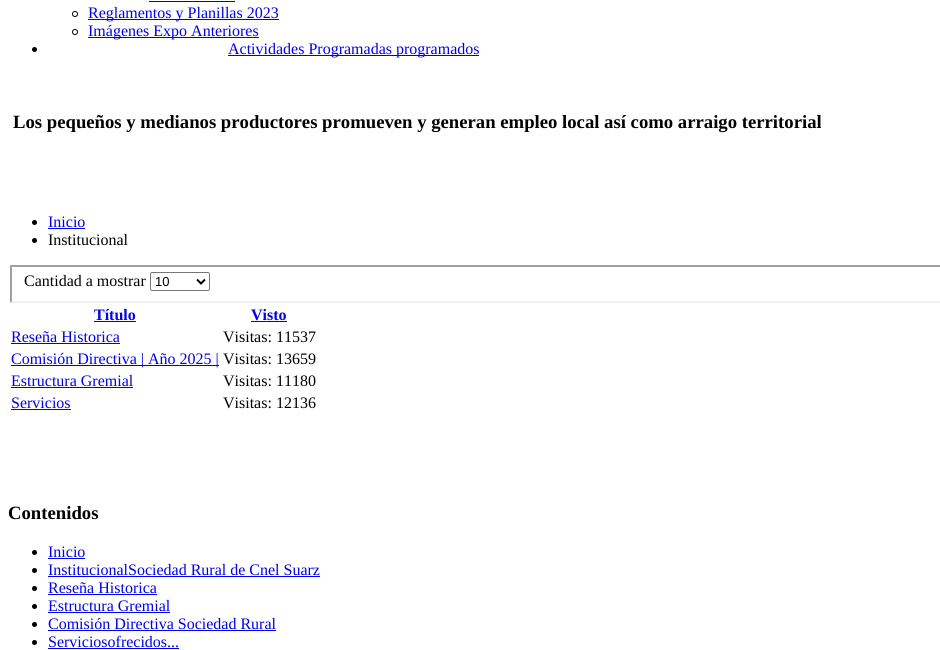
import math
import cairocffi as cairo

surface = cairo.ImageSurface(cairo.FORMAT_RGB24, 940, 650)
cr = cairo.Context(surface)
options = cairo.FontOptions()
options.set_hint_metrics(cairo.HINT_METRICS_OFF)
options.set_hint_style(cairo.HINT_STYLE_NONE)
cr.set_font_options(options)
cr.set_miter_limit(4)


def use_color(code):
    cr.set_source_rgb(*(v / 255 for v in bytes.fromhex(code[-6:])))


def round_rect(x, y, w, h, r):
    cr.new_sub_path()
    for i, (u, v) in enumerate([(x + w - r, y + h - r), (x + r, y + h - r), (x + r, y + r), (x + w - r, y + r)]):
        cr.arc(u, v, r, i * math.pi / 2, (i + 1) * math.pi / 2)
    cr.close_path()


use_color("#ffffff")
cr.paint()
use_color("#0000ee")
cr.rectangle(149, 1, 86, 1)
cr.fill()
cr.arc(75, 14, 2.5, 0, 2 * math.pi)
use_color("#000000")
cr.set_line_width(1)
cr.stroke()
use_color("#0000ee")
cr.rectangle(88, 19, 191, 1)
cr.fill()
cr.select_font_face("Liberation Serif")
cr.set_font_size(16)
cr.move_to(88, 18)
cr.show_text("Reglamentos y Planillas 2023")
cr.new_path()
cr.arc(75, 32, 2.5, 0, 2 * math.pi)
use_color("#000000")
cr.stroke()
use_color("#0000ee")
cr.rectangle(88, 37, 171, 1)
cr.fill()
cr.move_to(88, 36)
cr.show_text("Imágenes Expo Anteriores")
use_color("#000000")
cr.new_path()
cr.arc(34.5, 49.5, 2.5, 0, 2 * math.pi)
cr.fill()
use_color("#0000ee")
cr.rectangle(228, 55, 251, 1)
cr.fill()
cr.move_to(228, 54)
cr.show_text("Actividades Programadas programados")
cr.select_font_face("Liberation Serif", cairo.FONT_SLANT_NORMAL, cairo.FONT_WEIGHT_BOLD)
cr.set_font_size(18.7)
use_color("#000000")
cr.move_to(13, 128)
cr.show_text("Los pequeños y medianos productores promueven y generan empleo local así como arraigo territorial")
cr.new_path()
cr.arc(34.5, 222.5, 2.5, 0, 2 * math.pi)
cr.fill()
cr.select_font_face("Liberation Serif")
cr.set_font_size(16)
use_color("#0000ee")
cr.move_to(48, 227)
cr.show_text("Inicio")
cr.rectangle(48, 228, 37, 1)
cr.fill()
use_color("#000000")
cr.arc(34.5, 240.5, 2.5, 0, 2 * math.pi)
cr.fill()
cr.move_to(48, 245)
cr.show_text("Institucional")
use_color("#9f9f9f")
cr.new_path()
cr.move_to(10, 265)
cr.line_to(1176, 265)
cr.line_to(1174, 267)
cr.line_to(12, 267)
cr.close_path()
cr.fill()
use_color("#efefef")
cr.new_path()
cr.move_to(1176, 303)
cr.line_to(10, 303)
cr.line_to(12, 301)
cr.line_to(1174, 301)
cr.close_path()
cr.fill()
use_color("#9f9f9f")
cr.new_path()
cr.move_to(10, 303)
cr.line_to(10, 265)
cr.line_to(12, 267)
cr.line_to(12, 301)
cr.close_path()
cr.fill()
use_color("#000000")
cr.move_to(24, 286)
cr.show_text("Cantidad a mostrar")
round_rect(150.5, 272.5, 59, 18, 1.5)
use_color("#767676")
cr.stroke()
cr.new_path()
cr.move_to(197, 279.5)
cr.line_to(201, 283.5)
cr.line_to(205, 279.5)
use_color("#000000")
cr.set_line_width(2)
cr.stroke()
cr.select_font_face("Liberation Sans")
cr.set_font_size(13)
cr.move_to(155, 286)
cr.show_text("10")
cr.select_font_face("Liberation Serif", cairo.FONT_SLANT_NORMAL, cairo.FONT_WEIGHT_BOLD)
cr.set_font_size(16)
use_color("#0000ee")
cr.move_to(94, 320)
cr.show_text("Título")
cr.rectangle(94, 321, 42, 1)
cr.fill()
cr.move_to(251, 320)
cr.show_text("Visto")
cr.rectangle(251, 321, 36, 1)
cr.fill()
cr.select_font_face("Liberation Serif")
cr.move_to(11, 342)
cr.show_text("Reseña Historica")
cr.rectangle(11, 343, 109, 1)
cr.fill()
use_color("#000000")
cr.move_to(223, 342)
cr.show_text("Visitas: 11537")
use_color("#0000ee")
cr.rectangle(11, 365, 208, 1)
cr.fill()
cr.move_to(11, 364)
cr.show_text("Comisión Directiva | Año 2025 |")
use_color("#000000")
cr.move_to(223, 364)
cr.show_text("Visitas: 13659")
use_color("#0000ee")
cr.move_to(11, 386)
cr.show_text("Estructura Gremial")
cr.rectangle(11, 387, 122, 1)
cr.fill()
use_color("#000000")
cr.move_to(223, 386)
cr.show_text("Visitas: 11180")
use_color("#0000ee")
cr.move_to(11, 408)
cr.show_text("Servicios")
cr.rectangle(11, 409, 60, 1)
cr.fill()
use_color("#000000")
cr.move_to(223, 408)
cr.show_text("Visitas: 12136")
cr.select_font_face("Liberation Serif", cairo.FONT_SLANT_NORMAL, cairo.FONT_WEIGHT_BOLD)
cr.set_font_size(18.7)
cr.move_to(8, 519)
cr.show_text("Contenidos")
cr.new_path()
cr.arc(34.5, 552.5, 2.5, 0, 2 * math.pi)
cr.fill()
cr.select_font_face("Liberation Serif")
cr.set_font_size(16)
use_color("#0000ee")
cr.move_to(48, 557)
cr.show_text("Inicio")
cr.rectangle(48, 558, 37, 1)
cr.fill()
use_color("#000000")
cr.arc(34.5, 570.5, 2.5, 0, 2 * math.pi)
cr.fill()
use_color("#0000ee")
cr.move_to(48, 575)
cr.show_text("InstitucionalSociedad Rural de Cnel Suarz")
cr.rectangle(48, 576, 272, 1)
cr.fill()
use_color("#000000")
cr.arc(34.5, 588.5, 2.5, 0, 2 * math.pi)
cr.fill()
use_color("#0000ee")
cr.move_to(48, 593)
cr.show_text("Reseña Historica")
cr.rectangle(48, 594, 109, 1)
cr.fill()
use_color("#000000")
cr.arc(34.5, 606.5, 2.5, 0, 2 * math.pi)
cr.fill()
use_color("#0000ee")
cr.move_to(48, 611)
cr.show_text("Estructura Gremial")
cr.rectangle(48, 612, 122, 1)
cr.fill()
use_color("#000000")
cr.arc(34.5, 624.5, 2.5, 0, 2 * math.pi)
cr.fill()
use_color("#0000ee")
cr.move_to(48, 629)
cr.show_text("Comisión Directiva Sociedad Rural")
cr.rectangle(48, 630, 228, 1)
cr.fill()
use_color("#000000")
cr.arc(34.5, 642.5, 2.5, 0, 2 * math.pi)
cr.fill()
use_color("#0000ee")
cr.move_to(48, 647)
cr.show_text("Serviciosofrecidos...")
cr.rectangle(48, 648, 131, 1)
cr.fill()
surface.write_to_png("result.png")
